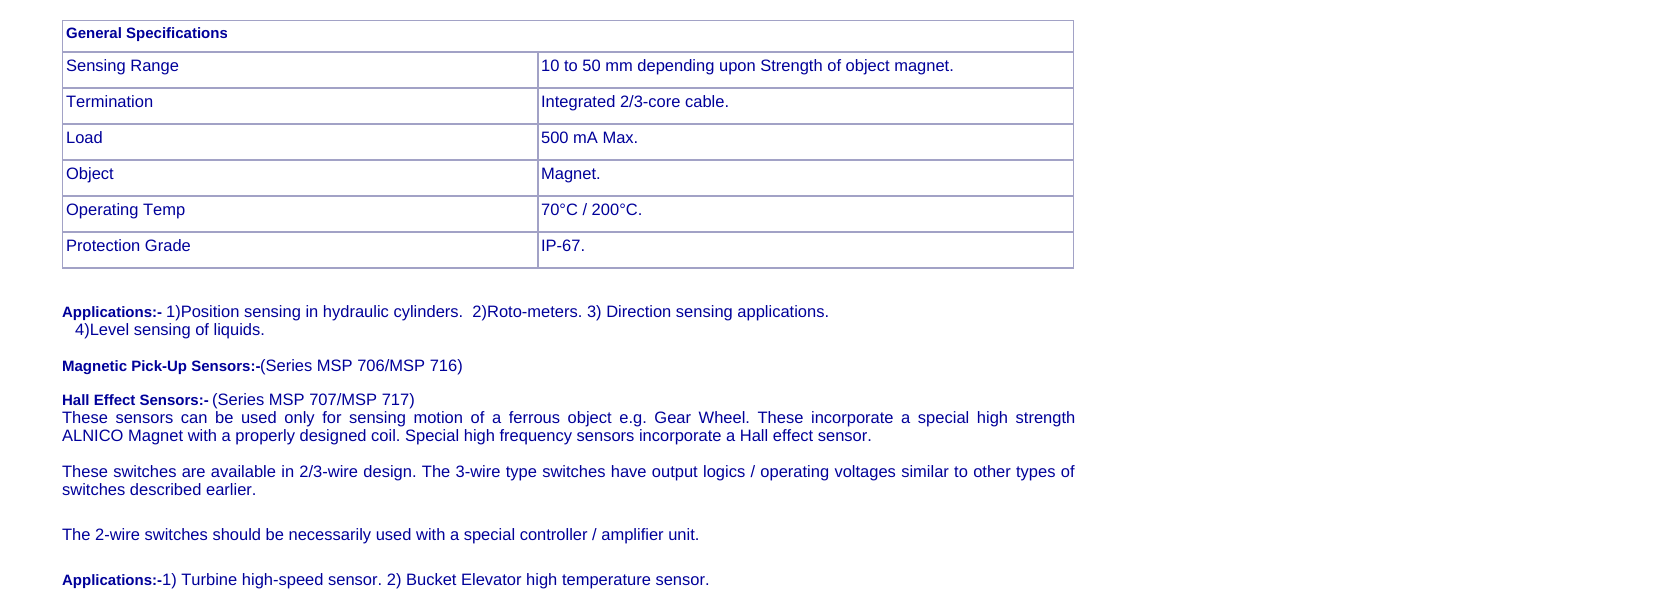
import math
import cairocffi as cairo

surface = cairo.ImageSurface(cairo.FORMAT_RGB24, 1675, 616)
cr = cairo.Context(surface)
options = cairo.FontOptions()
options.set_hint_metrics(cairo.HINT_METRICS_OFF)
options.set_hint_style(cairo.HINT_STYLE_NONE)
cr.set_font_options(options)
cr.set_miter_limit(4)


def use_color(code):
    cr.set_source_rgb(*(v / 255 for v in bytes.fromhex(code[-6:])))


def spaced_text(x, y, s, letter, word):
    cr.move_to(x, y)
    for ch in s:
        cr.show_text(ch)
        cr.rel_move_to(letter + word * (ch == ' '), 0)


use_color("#ffffff")
cr.paint()
use_color("#a2a2c6")
cr.rectangle(62, 20, 1012, 249)
cr.fill()
use_color("#ffffff")
cr.rectangle(63, 21, 1010, 30)
cr.fill()
cr.select_font_face("Liberation Sans", cairo.FONT_SLANT_NORMAL, cairo.FONT_WEIGHT_BOLD)
cr.set_font_size(15)
use_color("#000099")
cr.move_to(66, 38)
cr.show_text("General Specifications")
use_color("#ffffff")
cr.rectangle(63, 53, 474, 34)
cr.fill()
cr.select_font_face("Liberation Sans")
cr.set_font_size(16.5)
use_color("#000099")
cr.move_to(66, 71)
cr.show_text("Sensing Range")
use_color("#ffffff")
cr.rectangle(539, 53, 534, 34)
cr.fill()
use_color("#000099")
cr.move_to(541, 71)
cr.show_text("10 to 50 mm depending upon Strength of object magnet.")
use_color("#ffffff")
cr.rectangle(63, 89, 474, 34)
cr.fill()
use_color("#000099")
cr.move_to(66, 107)
cr.show_text("Termination")
use_color("#ffffff")
cr.rectangle(539, 89, 534, 34)
cr.fill()
use_color("#000099")
cr.move_to(541, 107)
cr.show_text("Integrated 2/3-core cable.")
use_color("#ffffff")
cr.rectangle(63, 125, 474, 34)
cr.fill()
use_color("#000099")
cr.move_to(66, 143)
cr.show_text("Load")
use_color("#ffffff")
cr.rectangle(539, 125, 534, 34)
cr.fill()
use_color("#000099")
cr.move_to(541, 143)
cr.show_text("500 mA Max.")
use_color("#ffffff")
cr.rectangle(63, 161, 474, 34)
cr.fill()
use_color("#000099")
cr.move_to(66, 179)
cr.show_text("Object")
use_color("#ffffff")
cr.rectangle(539, 161, 534, 34)
cr.fill()
use_color("#000099")
cr.move_to(541, 179)
cr.show_text("Magnet.")
use_color("#ffffff")
cr.rectangle(63, 197, 474, 34)
cr.fill()
use_color("#000099")
cr.move_to(66, 215)
cr.show_text("Operating Temp")
use_color("#ffffff")
cr.rectangle(539, 197, 534, 34)
cr.fill()
use_color("#000099")
cr.move_to(541, 215)
cr.show_text("70°C / 200°C.")
use_color("#ffffff")
cr.rectangle(63, 233, 474, 34)
cr.fill()
use_color("#000099")
cr.move_to(66, 251)
cr.show_text("Protection Grade")
use_color("#ffffff")
cr.rectangle(539, 233, 534, 34)
cr.fill()
use_color("#000099")
cr.move_to(541, 251)
cr.show_text("IP-67.")
cr.select_font_face("Liberation Sans", cairo.FONT_SLANT_NORMAL, cairo.FONT_WEIGHT_BOLD)
cr.set_font_size(15)
cr.move_to(62, 317)
cr.show_text("Applications:-")
cr.select_font_face("Liberation Sans")
cr.set_font_size(16.5)
cr.move_to(166, 317)
cr.show_text("1)Position sensing in hydraulic cylinders.  2)Roto-meters. 3) Direction sensing applications.")
cr.move_to(75, 335)
cr.show_text("4)Level sensing of liquids.")
cr.select_font_face("Liberation Sans", cairo.FONT_SLANT_NORMAL, cairo.FONT_WEIGHT_BOLD)
cr.set_font_size(15)
cr.move_to(62, 371)
cr.show_text("Magnetic Pick-Up Sensors:-")
cr.select_font_face("Liberation Sans")
cr.set_font_size(16.5)
cr.move_to(260, 371)
cr.show_text("(Series MSP 706/MSP 716)")
cr.select_font_face("Liberation Sans", cairo.FONT_SLANT_NORMAL, cairo.FONT_WEIGHT_BOLD)
cr.set_font_size(15)
cr.move_to(62, 405)
cr.show_text("Hall Effect Sensors:-")
cr.select_font_face("Liberation Sans")
cr.set_font_size(16.5)
cr.move_to(212, 405)
cr.show_text("(Series MSP 707/MSP 717)")
spaced_text(62, 423, "These sensors can be used only for sensing motion of a ferrous object e.g. Gear Wheel. These incorporate a special high strength", 0, 3)
cr.move_to(62, 441)
cr.show_text("ALNICO Magnet with a properly designed coil. Special high frequency sensors incorporate a Hall effect sensor.")
spaced_text(62, 477, "These switches are available in 2/3-wire design. The 3-wire type switches have output logics / operating voltages similar to other types of", 0, 0.7)
cr.move_to(62, 495)
cr.show_text("switches described earlier.")
cr.move_to(62, 540)
cr.show_text("The 2-wire switches should be necessarily used with a special controller / amplifier unit.")
cr.select_font_face("Liberation Sans", cairo.FONT_SLANT_NORMAL, cairo.FONT_WEIGHT_BOLD)
cr.set_font_size(15)
cr.move_to(62, 585)
cr.show_text("Applications:-")
cr.select_font_face("Liberation Sans")
cr.set_font_size(16.5)
cr.move_to(162, 585)
cr.show_text("1) Turbine high-speed sensor. 2) Bucket Elevator high temperature sensor.")
surface.write_to_png("result.png")
